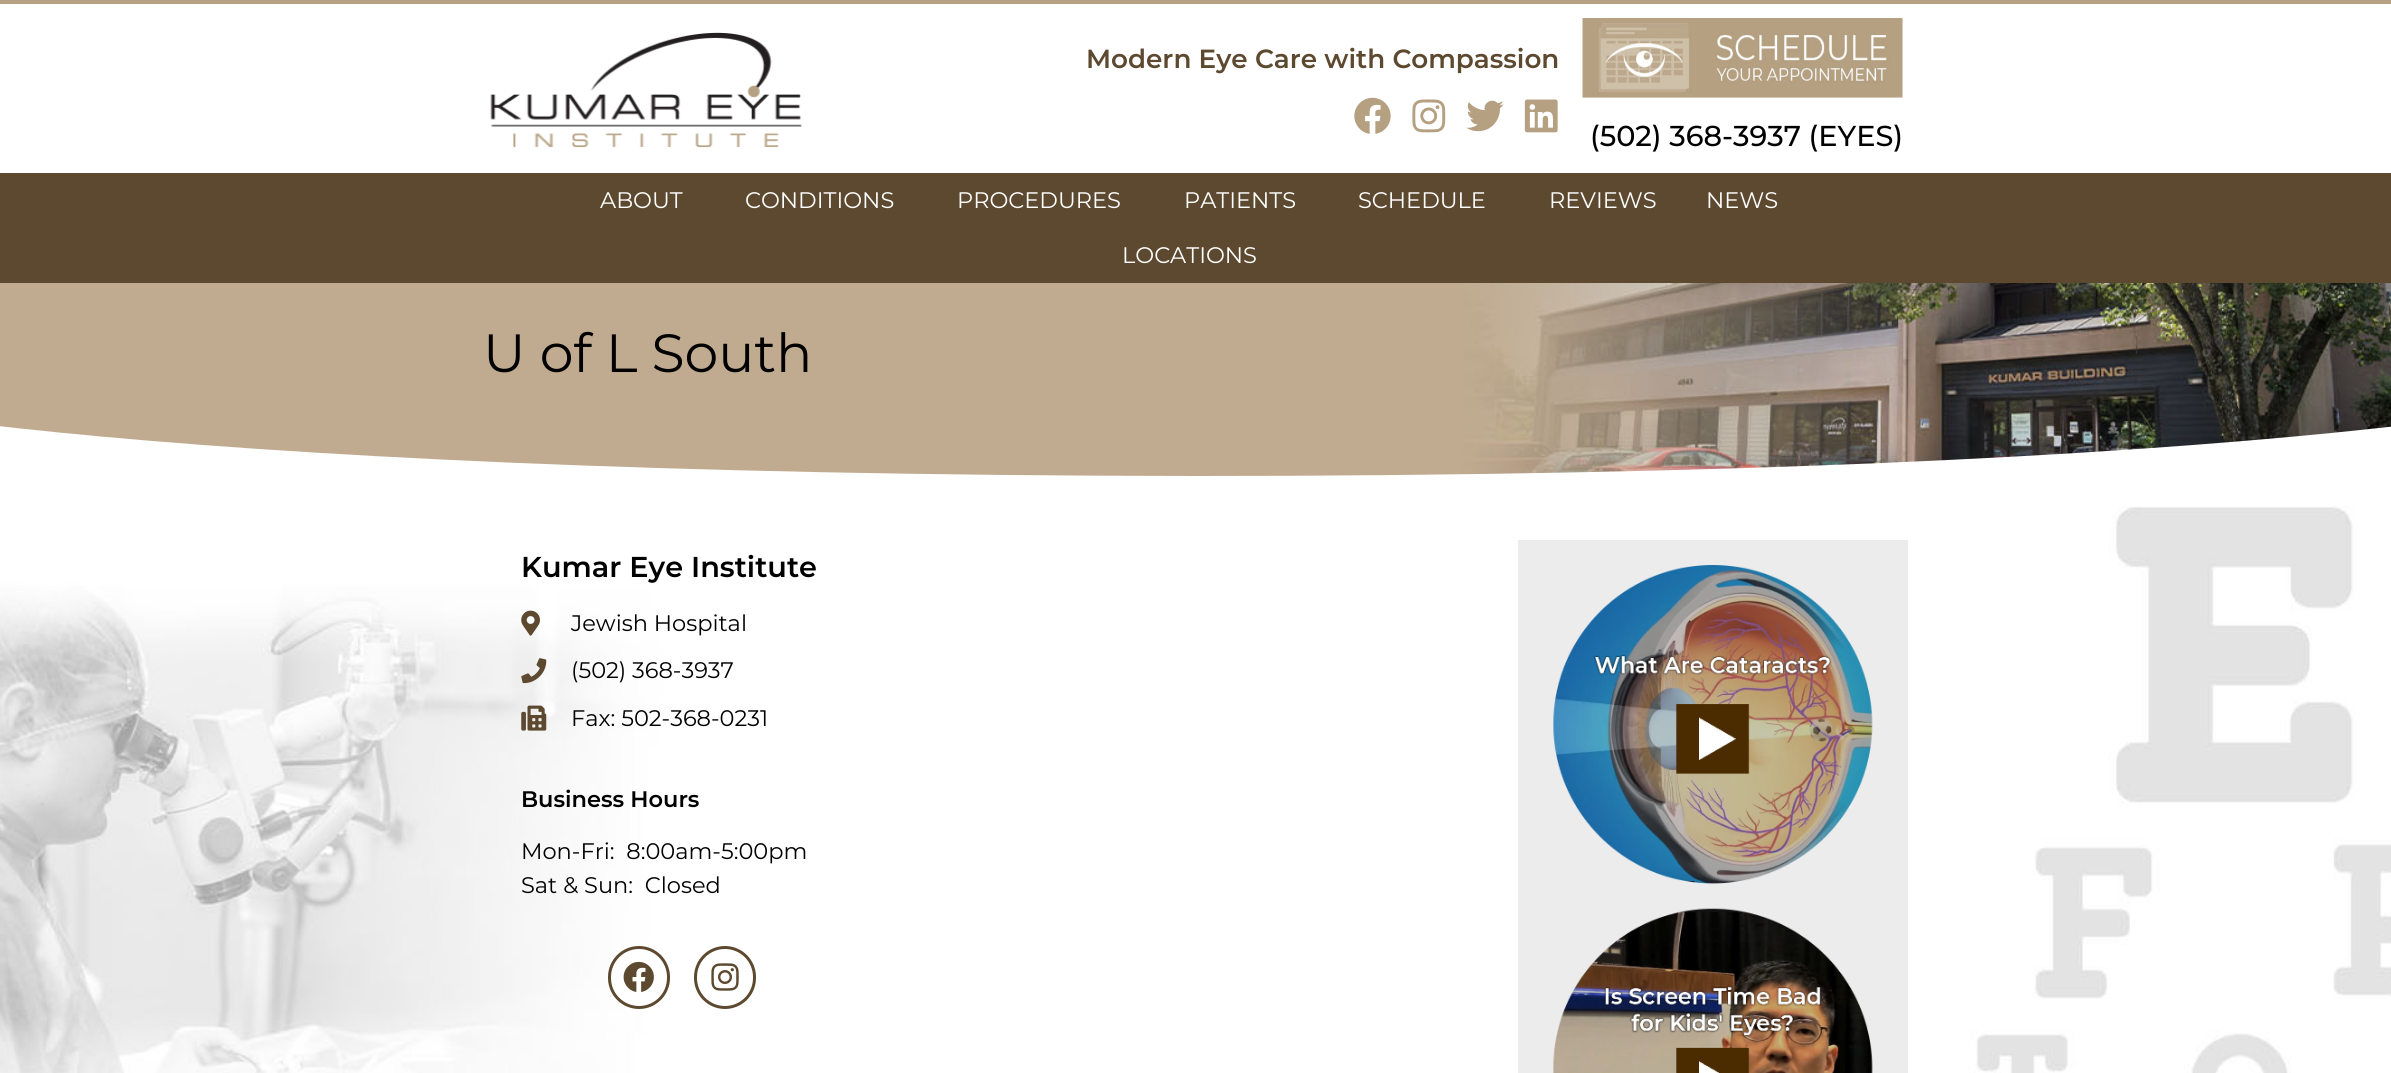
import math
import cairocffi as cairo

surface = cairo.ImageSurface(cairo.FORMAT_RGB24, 2391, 1073)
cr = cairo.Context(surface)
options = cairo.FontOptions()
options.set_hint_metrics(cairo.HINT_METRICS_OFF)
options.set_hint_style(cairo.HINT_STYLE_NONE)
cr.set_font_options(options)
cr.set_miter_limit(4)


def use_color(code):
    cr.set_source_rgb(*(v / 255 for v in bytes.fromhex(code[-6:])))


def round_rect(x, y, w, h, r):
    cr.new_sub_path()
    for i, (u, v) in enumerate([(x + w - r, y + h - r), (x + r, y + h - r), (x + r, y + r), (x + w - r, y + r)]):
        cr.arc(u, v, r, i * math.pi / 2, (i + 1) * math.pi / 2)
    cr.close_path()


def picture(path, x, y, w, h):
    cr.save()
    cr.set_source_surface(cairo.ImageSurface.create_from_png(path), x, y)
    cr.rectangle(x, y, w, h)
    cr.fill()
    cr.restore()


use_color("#ffffff")
cr.paint()
picture("img1.png", 0, 506, 2391, 567)
use_color("#b5a081")
cr.rectangle(0, 0, 2391, 4)
cr.fill()
picture("img2.png", 490, 32, 312, 116)
cr.select_font_face("Montserrat SemiBold")
cr.set_font_size(26.25)
use_color("#5d492f")
cr.move_to(1086, 68)
cr.show_text("Modern Eye Care with Compassion")
picture("img3.png", 1354, 97, 37, 37)
picture("img4.png", 1412, 99, 34, 34)
picture("img5.png", 1466, 100, 38, 32)
picture("img6.png", 1524, 99, 34, 34)
picture("img7.png", 1582, 18, 321, 80)
cr.select_font_face("Montserrat Medium")
cr.set_font_size(28.75)
use_color("#000000")
cr.move_to(1590, 146)
cr.show_text("(502) 368-3937 (EYES)")
use_color("#5d492f")
cr.rectangle(0, 173, 2391, 110)
cr.fill()
cr.select_font_face("Montserrat")
cr.set_font_size(22.5)
use_color("#ffffff")
cr.move_to(600, 208)
cr.show_text("ABOUT")
cr.move_to(745, 208)
cr.show_text("CONDITIONS")
cr.move_to(957, 208)
cr.show_text("PROCEDURES")
cr.move_to(1184, 208)
cr.show_text("PATIENTS")
cr.move_to(1358, 208)
cr.show_text("SCHEDULE")
cr.move_to(1549, 208)
cr.show_text("REVIEWS")
cr.move_to(1706, 208)
cr.show_text("NEWS")
cr.move_to(1122, 263)
cr.show_text("LOCATIONS")
picture("img8.png", 0, 283, 2391, 193)
cr.set_font_size(53.75)
use_color("#000000")
cr.move_to(483, 372)
cr.show_text("U of L South")
use_color("#ffffff")
cr.new_path()
cr.move_to(1196, 476)
cr.curve_to(107, 475, -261, 395, -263, 374)
cr.line_to(-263, 479)
cr.line_to(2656, 479)
cr.line_to(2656, 375)
cr.curve_to(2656, 394, 2286, 476, 1196, 476)
cr.close_path()
cr.fill()
cr.select_font_face("Montserrat SemiBold")
cr.set_font_size(28.75)
use_color("#000000")
cr.move_to(521, 577)
cr.show_text("Kumar Eye Institute")
picture("img9.png", 521, 610, 19, 26)
cr.select_font_face("Montserrat")
cr.set_font_size(22.5)
cr.move_to(571, 631)
cr.show_text("Jewish Hospital")
picture("img10.png", 521, 658, 26, 26)
cr.move_to(571, 678)
cr.show_text("(502) 368-3937")
picture("img11.png", 521, 705, 26, 26)
cr.move_to(571, 726)
cr.show_text("Fax: 502-368-0231")
cr.select_font_face("Montserrat SemiBold")
cr.move_to(521, 807)
cr.show_text("Business Hours")
cr.select_font_face("Montserrat")
cr.move_to(521, 859)
cr.show_text("Mon-Fri:  8:00am-5:00pm")
cr.move_to(521, 893)
cr.show_text("Sat & Sun:  Closed")
use_color("#ffffff")
round_rect(609.5, 947.5, 59, 60, 29.5)
cr.fill_preserve()
use_color("#5d492f")
cr.set_line_width(3)
cr.stroke()
picture("img12.png", 623, 961, 31, 31)
round_rect(695.5, 947.5, 59, 60, 29.5)
cr.stroke()
picture("img13.png", 711, 963, 28, 28)
use_color("#ececec")
cr.rectangle(1518, 540, 390, 533)
cr.fill()
picture("img14.png", 1553, 565, 320, 319)
picture("img15.png", 1553, 908, 320, 165)
surface.write_to_png("result.png")
